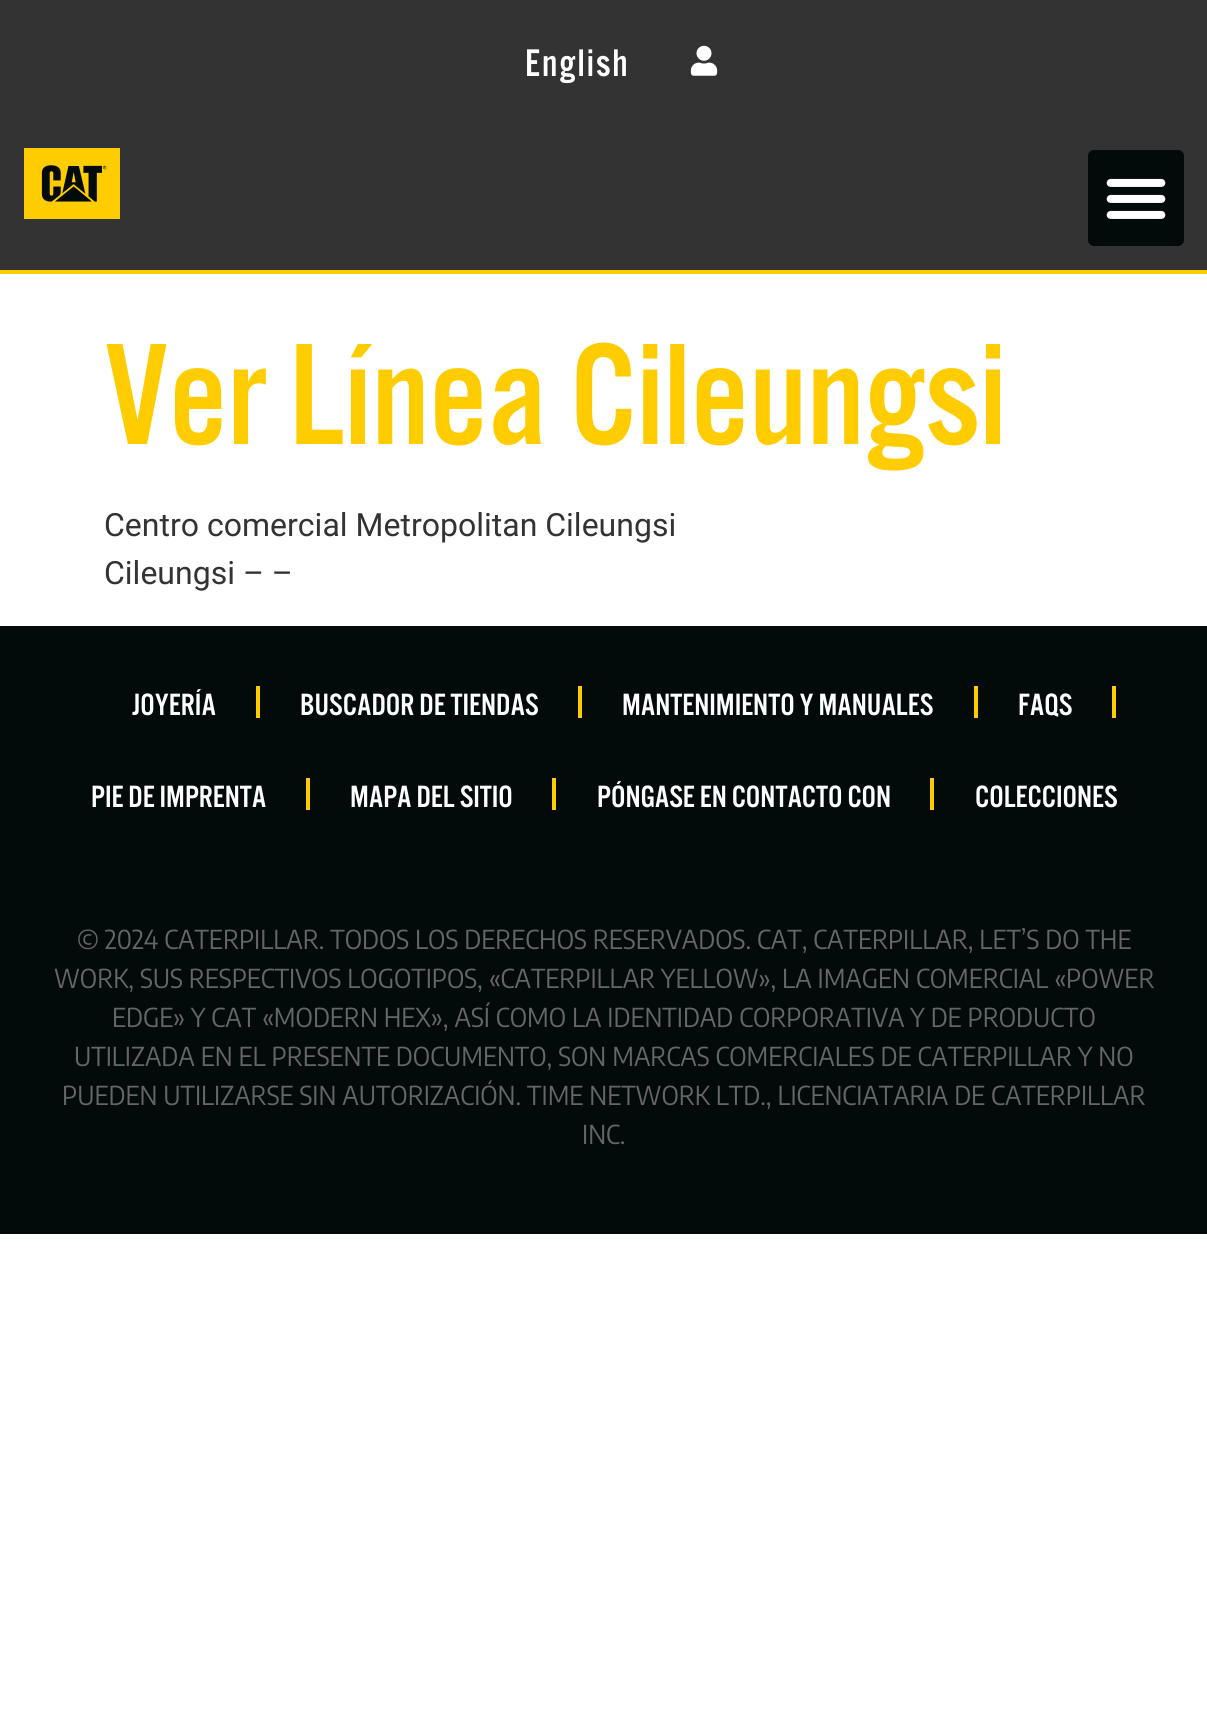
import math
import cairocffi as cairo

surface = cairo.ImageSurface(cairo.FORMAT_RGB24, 1207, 1730)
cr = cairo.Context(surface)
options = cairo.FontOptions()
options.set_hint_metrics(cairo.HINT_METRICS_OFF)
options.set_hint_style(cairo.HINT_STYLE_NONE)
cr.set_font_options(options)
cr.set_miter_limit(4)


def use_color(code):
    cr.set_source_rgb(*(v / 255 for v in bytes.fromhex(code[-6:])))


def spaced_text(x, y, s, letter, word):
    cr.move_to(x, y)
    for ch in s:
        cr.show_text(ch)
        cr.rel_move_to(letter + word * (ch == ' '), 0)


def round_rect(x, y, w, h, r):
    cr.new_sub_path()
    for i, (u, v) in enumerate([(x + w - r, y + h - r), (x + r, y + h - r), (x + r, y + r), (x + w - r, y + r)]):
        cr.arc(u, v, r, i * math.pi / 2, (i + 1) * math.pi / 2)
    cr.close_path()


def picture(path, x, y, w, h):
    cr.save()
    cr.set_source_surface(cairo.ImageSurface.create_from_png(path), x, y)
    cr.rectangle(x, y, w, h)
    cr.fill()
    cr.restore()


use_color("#ffffff")
cr.paint()
use_color("#333333")
cr.rectangle(0, 0, 1207, 270)
cr.fill()
use_color("#ffcc00")
cr.rectangle(0, 270, 1207, 4)
cr.fill()
cr.select_font_face("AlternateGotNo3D")
cr.set_font_size(40)
use_color("#ffffff")
spaced_text(525, 76, "English", 2, 0)
picture("img1.png", 690, 45, 28, 31)
picture("img2.png", 24, 148, 96, 71)
use_color("#020a0a")
round_rect(1088, 150, 96, 96, 6)
cr.fill()
picture("img3.png", 1106, 178, 60, 41)
cr.set_font_size(150)
use_color("#ffcc00")
cr.move_to(104, 444)
cr.show_text("Ver Línea Cileungsi")
cr.select_font_face("Roboto")
cr.set_font_size(32)
use_color("#333333")
cr.move_to(104, 536)
cr.show_text("Centro comercial Metropolitan Cileungsi")
cr.move_to(104, 584)
cr.show_text("Cileungsi – –")
use_color("#020a0a")
cr.rectangle(0, 626, 1207, 608)
cr.fill()
cr.select_font_face("AlternateGotNo3D")
use_color("#ffffff")
cr.move_to(132, 715)
cr.show_text("JOYERÍA")
use_color("#ffcc00")
cr.rectangle(256, 686, 4, 32)
cr.fill()
use_color("#ffffff")
cr.move_to(300, 715)
cr.show_text("BUSCADOR DE TIENDAS")
use_color("#ffcc00")
cr.rectangle(578, 686, 4, 32)
cr.fill()
use_color("#ffffff")
cr.move_to(622, 715)
cr.show_text("MANTENIMIENTO Y MANUALES")
use_color("#ffcc00")
cr.rectangle(974, 686, 4, 32)
cr.fill()
use_color("#ffffff")
cr.move_to(1018, 715)
cr.show_text("FAQS")
use_color("#ffcc00")
cr.rectangle(1112, 686, 4, 32)
cr.fill()
use_color("#ffffff")
cr.move_to(91, 807)
cr.show_text("PIE DE IMPRENTA")
use_color("#ffcc00")
cr.rectangle(306, 778, 4, 32)
cr.fill()
use_color("#ffffff")
cr.move_to(350, 807)
cr.show_text("MAPA DEL SITIO")
use_color("#ffcc00")
cr.rectangle(552, 778, 4, 32)
cr.fill()
use_color("#ffffff")
cr.move_to(597, 807)
cr.show_text("PÓNGASE EN CONTACTO CON")
use_color("#ffcc00")
cr.rectangle(930, 778, 4, 32)
cr.fill()
use_color("#ffffff")
cr.move_to(975, 807)
cr.show_text("COLECCIONES")
cr.select_font_face("Encode Sans Semi Condensed")
cr.set_font_size(26)
use_color("#666666")
cr.move_to(77, 949)
cr.show_text("© 2024 CATERPILLAR. TODOS LOS DERECHOS RESERVADOS. CAT, CATERPILLAR, LET’S DO THE")
cr.move_to(54, 988)
cr.show_text("WORK, SUS RESPECTIVOS LOGOTIPOS, «CATERPILLAR YELLOW», LA IMAGEN COMERCIAL «POWER")
cr.move_to(112, 1027)
cr.show_text("EDGE» Y CAT «MODERN HEX», ASÍ COMO LA IDENTIDAD CORPORATIVA Y DE PRODUCTO")
cr.move_to(74, 1066)
cr.show_text("UTILIZADA EN EL PRESENTE DOCUMENTO, SON MARCAS COMERCIALES DE CATERPILLAR Y NO")
cr.move_to(62, 1105)
cr.show_text("PUEDEN UTILIZARSE SIN AUTORIZACIÓN. TIME NETWORK LTD., LICENCIATARIA DE CATERPILLAR")
cr.move_to(582, 1144)
cr.show_text("INC.")
surface.write_to_png("result.png")
